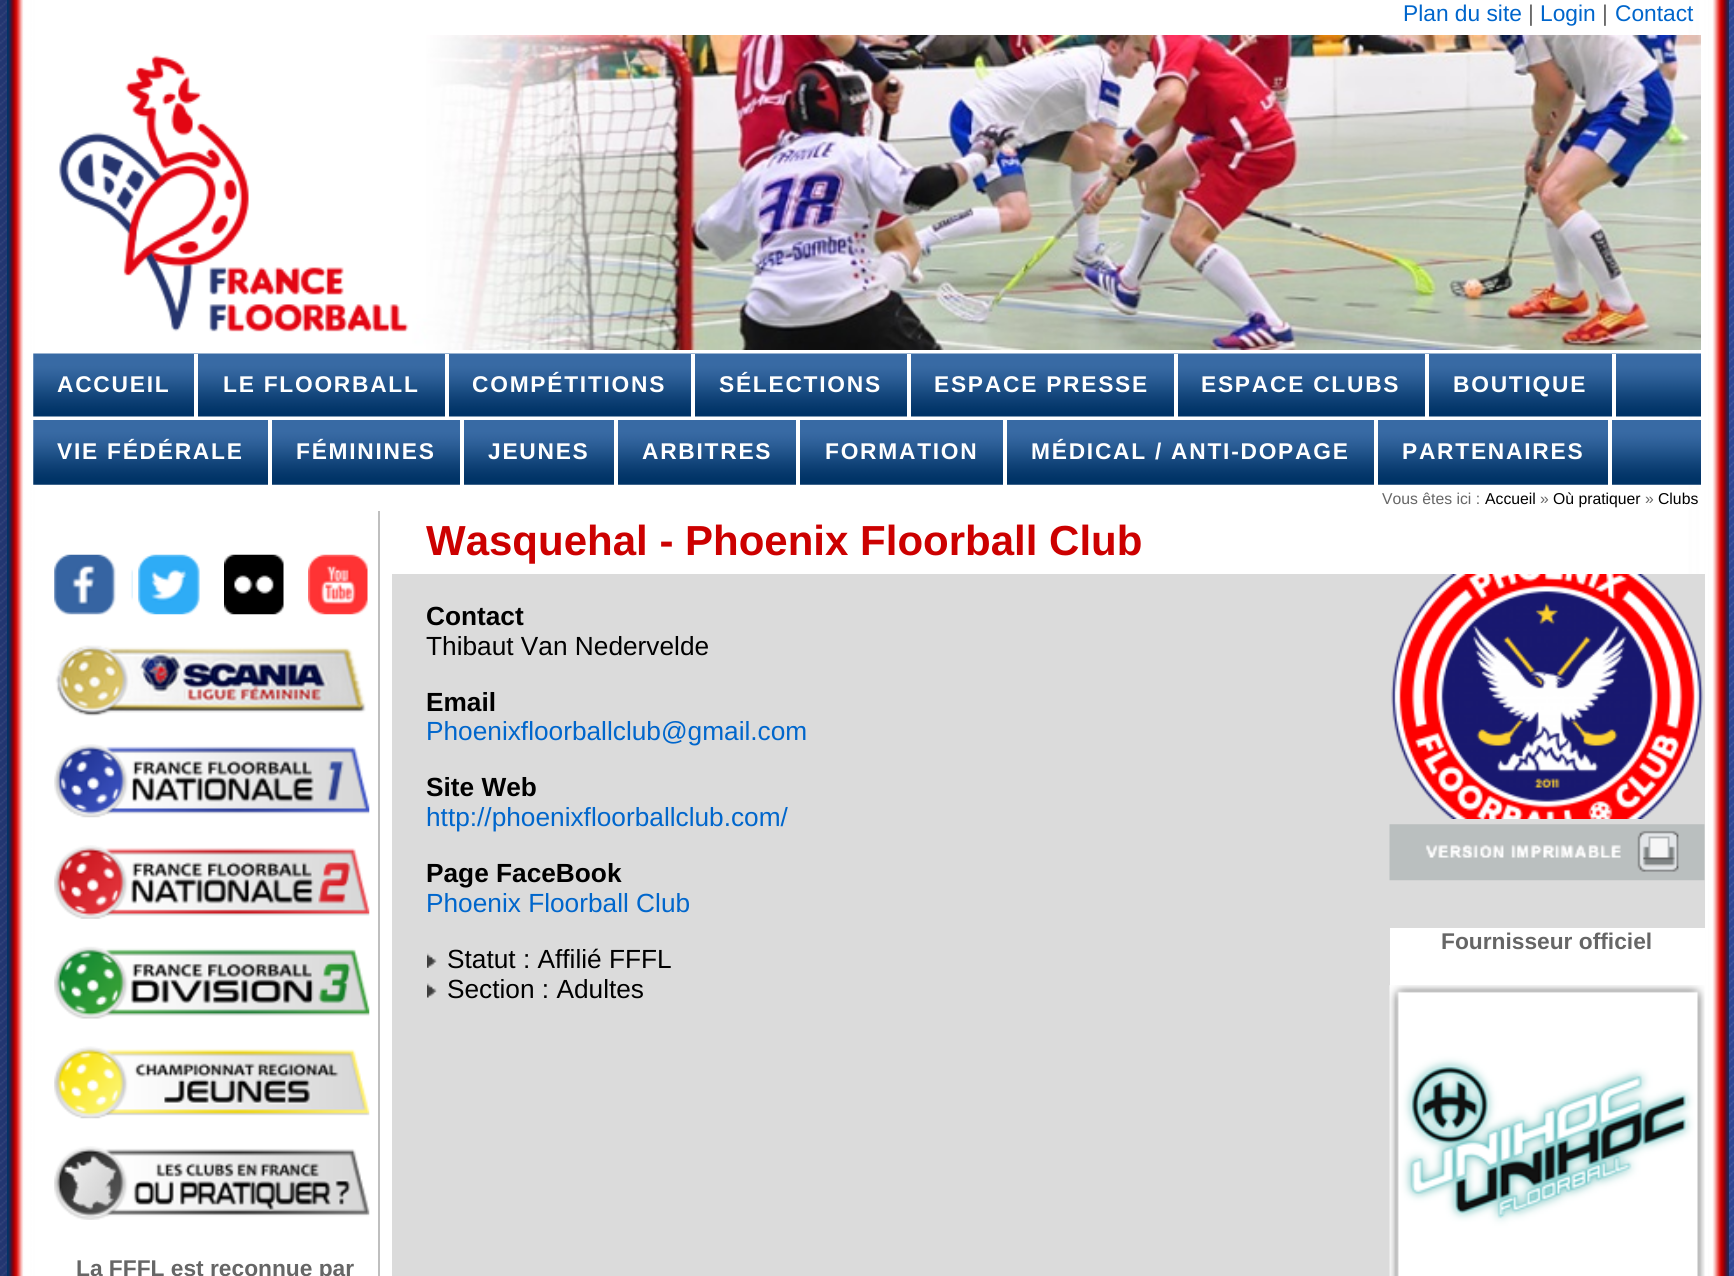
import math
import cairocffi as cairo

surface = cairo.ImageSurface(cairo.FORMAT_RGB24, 1734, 1276)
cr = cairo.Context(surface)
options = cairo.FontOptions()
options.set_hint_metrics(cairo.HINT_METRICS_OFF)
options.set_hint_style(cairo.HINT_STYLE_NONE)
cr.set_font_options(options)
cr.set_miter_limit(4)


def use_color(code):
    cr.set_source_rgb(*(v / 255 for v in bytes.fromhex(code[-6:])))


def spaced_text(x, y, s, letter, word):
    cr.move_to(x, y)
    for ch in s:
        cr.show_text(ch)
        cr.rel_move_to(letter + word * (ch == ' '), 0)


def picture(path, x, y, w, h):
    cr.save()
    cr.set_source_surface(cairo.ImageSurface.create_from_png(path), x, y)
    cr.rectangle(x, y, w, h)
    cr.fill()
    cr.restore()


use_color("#ffffff")
cr.paint()
picture("img1.png", 0, 0, 1734, 1276)
picture("img2.png", 7, 0, 1722, 1276)
cr.select_font_face("Liberation Sans")
cr.set_font_size(22.75)
use_color("#0066cc")
cr.move_to(1403, 21)
cr.show_text("Plan du site")
use_color("#666666")
cr.move_to(1528, 21)
cr.show_text("|")
use_color("#0066cc")
cr.move_to(1540, 21)
cr.show_text("Login")
use_color("#666666")
cr.move_to(1602, 21)
cr.show_text("|")
use_color("#0066cc")
cr.move_to(1615, 21)
cr.show_text("Contact")
picture("img3.png", 59, 35, 1642, 315)
picture("img4.png", 33, 353, 1668, 64)
use_color("#ffffff")
cr.rectangle(194, 354, 4, 63)
cr.fill()
cr.select_font_face("Liberation Sans", cairo.FONT_SLANT_NORMAL, cairo.FONT_WEIGHT_BOLD)
spaced_text(57, 392, "ACCUEIL", 1.75, 0)
cr.rectangle(445, 354, 4, 63)
cr.fill()
spaced_text(223, 392, "LE FLOORBALL", 1.75, 0)
cr.rectangle(691, 354, 4, 63)
cr.fill()
spaced_text(472, 392, "COMPÉTITIONS", 1.75, 0)
cr.rectangle(907, 354, 4, 63)
cr.fill()
spaced_text(719, 392, "SÉLECTIONS", 1.75, 0)
cr.rectangle(1174, 354, 4, 63)
cr.fill()
spaced_text(934, 392, "ESPACE PRESSE", 1.75, 0)
cr.rectangle(1425, 354, 4, 63)
cr.fill()
spaced_text(1201, 392, "ESPACE CLUBS", 1.75, 0)
cr.rectangle(1612, 354, 4, 63)
cr.fill()
spaced_text(1453, 392, "BOUTIQUE", 1.75, 0)
picture("img5.png", 33, 420, 1668, 65)
cr.rectangle(268, 420, 4, 65)
cr.fill()
spaced_text(57, 459, "VIE FÉDÉRALE", 1.75, 0)
cr.rectangle(460, 420, 4, 65)
cr.fill()
spaced_text(296, 459, "FÉMININES", 1.75, 0)
cr.rectangle(614, 420, 4, 65)
cr.fill()
spaced_text(488, 459, "JEUNES", 1.75, 0)
cr.rectangle(796, 420, 4, 65)
cr.fill()
spaced_text(642, 459, "ARBITRES", 1.75, 0)
cr.rectangle(1003, 420, 4, 65)
cr.fill()
spaced_text(825, 459, "FORMATION", 1.75, 0)
cr.rectangle(1374, 420, 4, 65)
cr.fill()
spaced_text(1031, 459, "MÉDICAL / ANTI-DOPAGE", 1.75, 0)
cr.rectangle(1608, 420, 4, 65)
cr.fill()
spaced_text(1402, 459, "PARTENAIRES", 1.75, 0)
cr.select_font_face("Liberation Sans")
cr.set_font_size(15.75)
use_color("#666666")
cr.move_to(1382, 504)
cr.show_text("Vous êtes ici :")
use_color("#000000")
cr.move_to(1485, 504)
cr.show_text("Accueil")
use_color("#666666")
cr.move_to(1540, 504)
cr.show_text("»")
use_color("#000000")
cr.move_to(1553, 504)
cr.show_text("Où pratiquer")
use_color("#666666")
cr.move_to(1645, 504)
cr.show_text("»")
use_color("#000000")
cr.move_to(1658, 504)
cr.show_text("Clubs")
use_color("#dbdbdb")
cr.rectangle(392, 574, 1313, 702)
cr.fill()
cr.select_font_face("Liberation Sans", cairo.FONT_SLANT_NORMAL, cairo.FONT_WEIGHT_BOLD)
cr.set_font_size(42)
use_color("#cc0000")
cr.move_to(426, 555)
cr.show_text("Wasquehal - Phoenix Floorball Club")
cr.set_font_size(26.25)
use_color("#000000")
cr.move_to(426, 625)
cr.show_text("Contact")
cr.select_font_face("Liberation Sans")
cr.move_to(426, 655)
cr.show_text("Thibaut Van Nedervelde")
cr.select_font_face("Liberation Sans", cairo.FONT_SLANT_NORMAL, cairo.FONT_WEIGHT_BOLD)
cr.move_to(426, 711)
cr.show_text("Email")
cr.select_font_face("Liberation Sans")
use_color("#0066cc")
cr.move_to(426, 740)
cr.show_text("Phoenixfloorballclub@gmail.com")
cr.select_font_face("Liberation Sans", cairo.FONT_SLANT_NORMAL, cairo.FONT_WEIGHT_BOLD)
use_color("#000000")
cr.move_to(426, 796)
cr.show_text("Site Web")
cr.select_font_face("Liberation Sans")
use_color("#0066cc")
cr.move_to(426, 826)
cr.show_text("http://phoenixfloorballclub.com/")
cr.select_font_face("Liberation Sans", cairo.FONT_SLANT_NORMAL, cairo.FONT_WEIGHT_BOLD)
use_color("#000000")
cr.move_to(426, 882)
cr.show_text("Page FaceBook")
cr.select_font_face("Liberation Sans")
use_color("#0066cc")
cr.move_to(426, 912)
cr.show_text("Phoenix Floorball Club")
picture("img6.png", 427, 953, 10, 15)
use_color("#000000")
cr.move_to(447, 968)
cr.show_text("Statut : Affilié FFFL")
picture("img7.png", 427, 983, 10, 15)
cr.move_to(447, 998)
cr.show_text("Section : Adultes")
picture("img8.png", 1391, 574, 313, 245)
picture("img9.png", 1389, 824, 316, 57)
use_color("#ffffff")
cr.rectangle(1390, 928, 315, 348)
cr.fill()
cr.select_font_face("Liberation Sans", cairo.FONT_SLANT_NORMAL, cairo.FONT_WEIGHT_BOLD)
cr.set_font_size(22.75)
use_color("#666666")
cr.move_to(1441, 949)
cr.show_text("Fournisseur officiel")
picture("img10.png", 1389, 985, 316, 291)
use_color("#bfbfbf")
cr.rectangle(378, 511, 2, 765)
cr.fill()
picture("img11.png", 54, 554, 79, 61)
picture("img12.png", 138, 554, 62, 61)
picture("img13.png", 224, 554, 60, 61)
picture("img14.png", 308, 554, 60, 61)
picture("img15.png", 55, 645, 311, 71)
picture("img16.png", 54, 744, 316, 74)
picture("img17.png", 54, 845, 316, 74)
picture("img18.png", 54, 946, 316, 73)
picture("img19.png", 54, 1046, 316, 73)
picture("img20.png", 54, 1146, 316, 74)
use_color("#666666")
cr.move_to(76, 1276)
cr.show_text("La FFFL est reconnue par")
surface.write_to_png("result.png")
